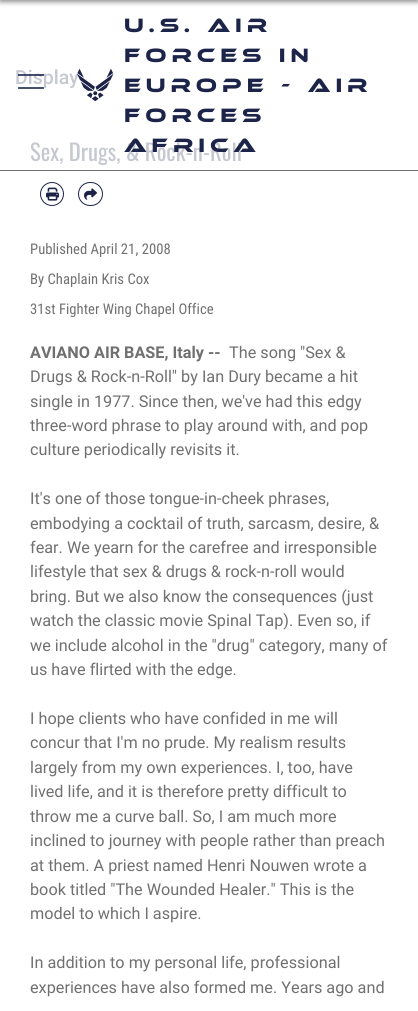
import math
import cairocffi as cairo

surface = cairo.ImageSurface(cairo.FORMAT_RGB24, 418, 1011)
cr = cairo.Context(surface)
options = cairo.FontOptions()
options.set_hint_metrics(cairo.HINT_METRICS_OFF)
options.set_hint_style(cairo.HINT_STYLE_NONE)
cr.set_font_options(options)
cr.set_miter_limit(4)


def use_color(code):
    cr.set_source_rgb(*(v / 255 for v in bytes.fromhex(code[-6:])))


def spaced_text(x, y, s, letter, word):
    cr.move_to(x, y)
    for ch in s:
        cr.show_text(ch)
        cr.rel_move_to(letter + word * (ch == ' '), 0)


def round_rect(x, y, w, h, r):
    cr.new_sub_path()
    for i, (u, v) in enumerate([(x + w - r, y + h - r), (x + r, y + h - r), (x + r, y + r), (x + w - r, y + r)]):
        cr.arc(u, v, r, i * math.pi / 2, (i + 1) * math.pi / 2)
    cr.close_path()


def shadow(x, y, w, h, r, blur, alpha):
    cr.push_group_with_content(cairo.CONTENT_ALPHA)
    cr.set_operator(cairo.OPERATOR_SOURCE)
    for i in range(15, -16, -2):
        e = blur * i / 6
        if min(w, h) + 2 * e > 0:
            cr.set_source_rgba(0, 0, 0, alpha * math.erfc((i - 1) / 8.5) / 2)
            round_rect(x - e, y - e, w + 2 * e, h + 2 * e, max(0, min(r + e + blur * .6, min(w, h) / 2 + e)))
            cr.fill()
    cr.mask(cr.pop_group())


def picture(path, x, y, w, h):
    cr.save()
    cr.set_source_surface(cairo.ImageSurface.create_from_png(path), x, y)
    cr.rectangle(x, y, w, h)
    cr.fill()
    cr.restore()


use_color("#ffffff")
cr.paint()
use_color("#1a1a1a")
shadow(0, -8, 418, 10, 0, 2.5, 0.5)
use_color("#707070")
cr.rectangle(0, 170, 418, 1)
cr.fill()
cr.select_font_face("Roboto Medium")
cr.set_font_size(19.5)
use_color("#c6c8d1")
cr.move_to(15, 84)
cr.show_text("Display")
cr.set_source_rgba(0.11, 0.141, 0.286, 0.8)
cr.rectangle(18, 74, 26, 2)
cr.fill()
use_color("#49506d")
round_rect(18, 87, 26, 2, 0.5)
cr.fill()
picture("img1.png", 77, 68, 37, 34)
cr.select_font_face("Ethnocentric")
cr.set_font_size(20)
use_color("#1c2449")
spaced_text(124, 32, "U.S. Air", 4.9, 0)
spaced_text(124, 62, "Forces in", 4.9, 0)
spaced_text(124, 92, "Europe - Air", 4.9, 0)
spaced_text(124, 122, "Forces", 4.9, 0)
cr.select_font_face("Oswald")
cr.set_font_size(22.75)
use_color("#c6c8d1")
cr.move_to(30, 161)
cr.show_text("Sex, Drugs, & Rock-n-Roll")
cr.select_font_face("Ethnocentric")
cr.set_font_size(20)
use_color("#1c2449")
spaced_text(124, 152, "Africa", 4.9, 0)
cr.new_path()
cr.arc(52, 194, 11.5, 0, 2 * math.pi)
use_color("#1c2347")
cr.set_line_width(1)
cr.stroke()
picture("img2.png", 46, 187, 14, 14)
round_rect(78.5, 182.5, 24, 23, 11.5)
cr.stroke()
picture("img3.png", 84, 188, 13, 12)
cr.select_font_face("Roboto Condensed")
cr.set_font_size(14.7)
use_color("#707070")
cr.move_to(30, 254)
cr.show_text("Published April 21, 2008")
cr.move_to(30, 284)
cr.show_text("By Chaplain Kris Cox")
cr.move_to(30, 314)
cr.show_text("31st Fighter Wing Chapel Office")
cr.select_font_face("Roboto", cairo.FONT_SLANT_NORMAL, cairo.FONT_WEIGHT_BOLD)
cr.set_font_size(16.25)
cr.move_to(30, 358)
cr.show_text("AVIANO AIR BASE, Italy --")
cr.select_font_face("Roboto")
cr.move_to(229, 358)
cr.show_text("The song \"Sex &")
cr.move_to(30, 382)
cr.show_text("Drugs & Rock-n-Roll\" by Ian Dury became a hit")
cr.move_to(30, 407)
cr.show_text("single in 1977. Since then, we've had this edgy")
cr.move_to(30, 431)
cr.show_text("three-word phrase to play around with, and pop")
cr.move_to(30, 455)
cr.show_text("culture periodically revisits it.")
cr.move_to(30, 504)
cr.show_text("It's one of those tongue-in-cheek phrases,")
cr.move_to(30, 529)
cr.show_text("embodying a cocktail of truth, sarcasm, desire, &")
cr.move_to(30, 553)
cr.show_text("fear. We yearn for the carefree and irresponsible")
cr.move_to(30, 577)
cr.show_text("lifestyle that sex & drugs & rock-n-roll would")
cr.move_to(30, 602)
cr.show_text("bring. But we also know the consequences (just")
cr.move_to(30, 626)
cr.show_text("watch the classic movie Spinal Tap). Even so, if")
cr.move_to(30, 651)
cr.show_text("we include alcohol in the \"drug\" category, many of")
cr.move_to(30, 675)
cr.show_text("us have flirted with the edge.")
cr.move_to(30, 724)
cr.show_text("I hope clients who have confided in me will")
cr.move_to(30, 748)
cr.show_text("concur that I'm no prude. My realism results")
cr.move_to(30, 773)
cr.show_text("largely from my own experiences. I, too, have")
cr.move_to(30, 797)
cr.show_text("lived life, and it is therefore pretty difficult to")
cr.move_to(30, 822)
cr.show_text("throw me a curve ball. So, I am much more")
cr.move_to(30, 846)
cr.show_text("inclined to journey with people rather than preach")
cr.move_to(30, 871)
cr.show_text("at them. A priest named Henri Nouwen wrote a")
cr.move_to(30, 895)
cr.show_text("book titled \"The Wounded Healer.\" This is the")
cr.move_to(30, 919)
cr.show_text("model to which I aspire.")
cr.move_to(30, 968)
cr.show_text("In addition to my personal life, professional")
cr.move_to(30, 993)
cr.show_text("experiences have also formed me. Years ago and")
surface.write_to_png("result.png")
